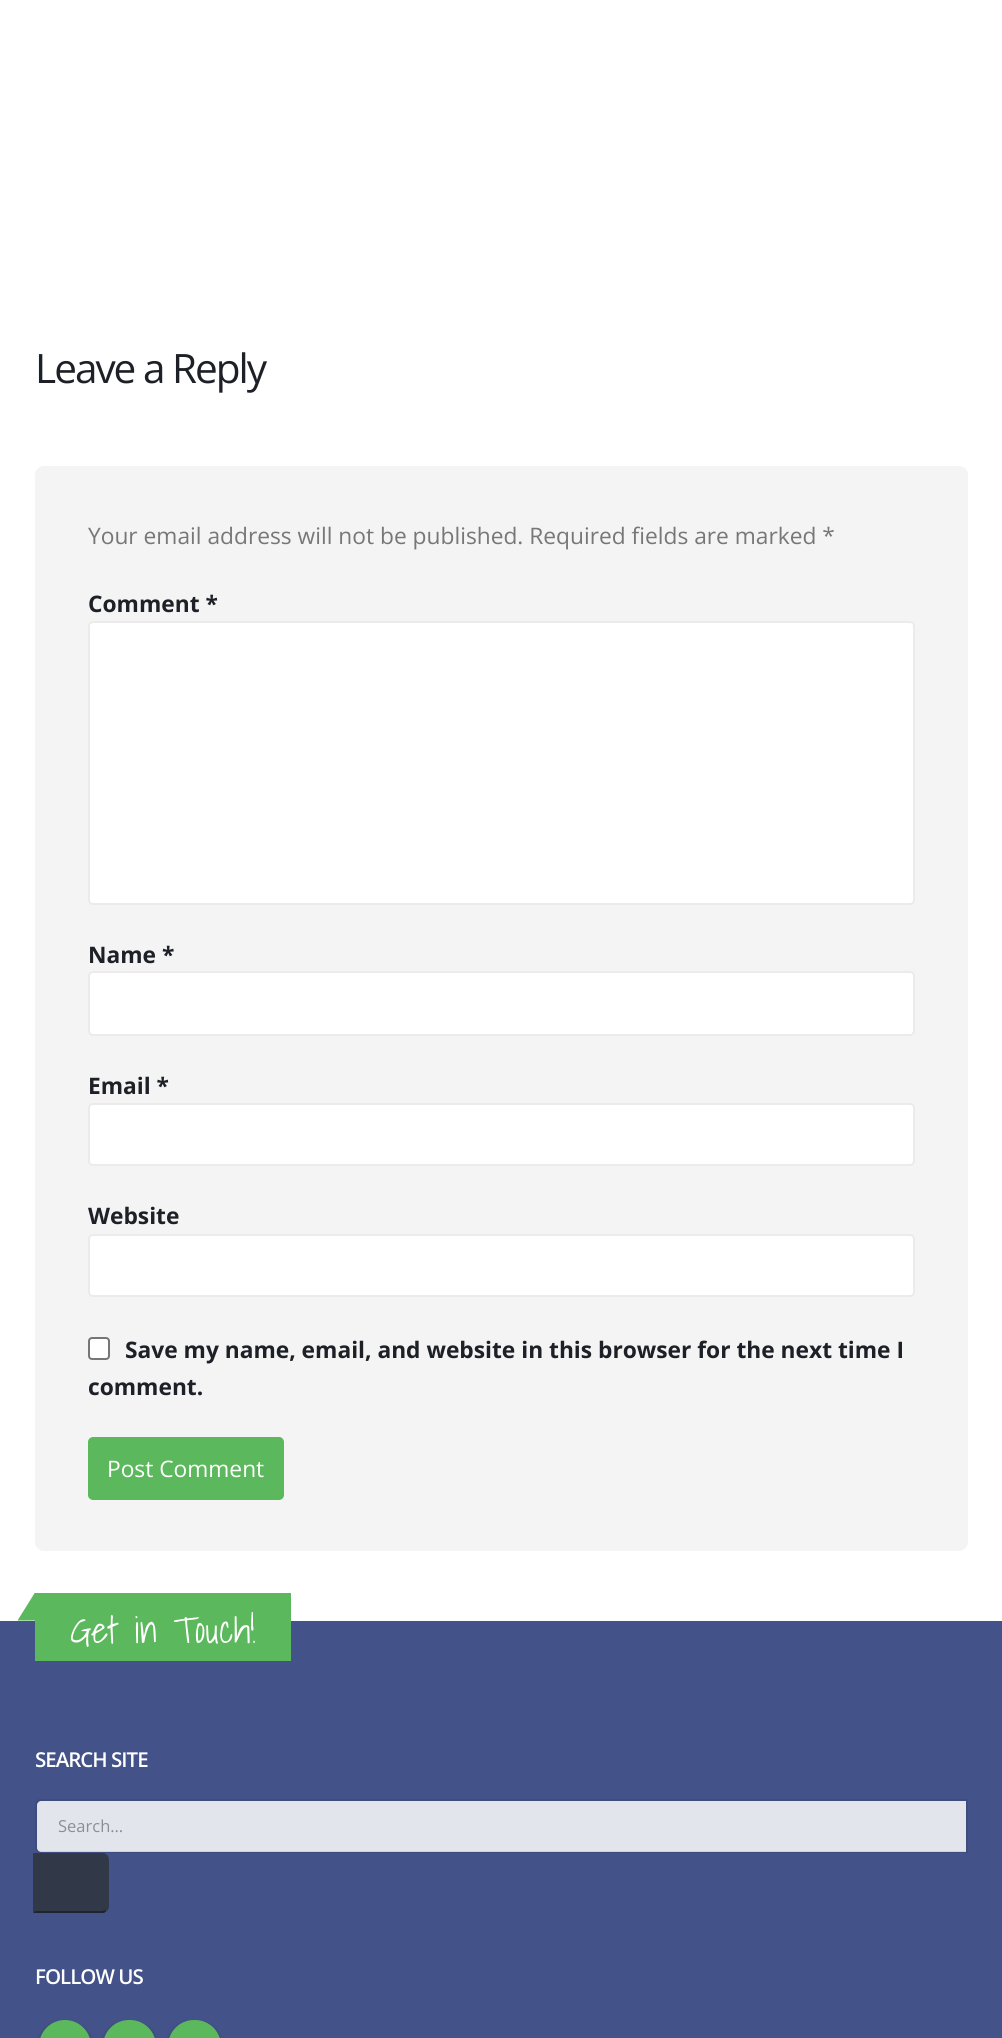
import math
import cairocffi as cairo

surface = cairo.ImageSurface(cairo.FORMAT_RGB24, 1002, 2038)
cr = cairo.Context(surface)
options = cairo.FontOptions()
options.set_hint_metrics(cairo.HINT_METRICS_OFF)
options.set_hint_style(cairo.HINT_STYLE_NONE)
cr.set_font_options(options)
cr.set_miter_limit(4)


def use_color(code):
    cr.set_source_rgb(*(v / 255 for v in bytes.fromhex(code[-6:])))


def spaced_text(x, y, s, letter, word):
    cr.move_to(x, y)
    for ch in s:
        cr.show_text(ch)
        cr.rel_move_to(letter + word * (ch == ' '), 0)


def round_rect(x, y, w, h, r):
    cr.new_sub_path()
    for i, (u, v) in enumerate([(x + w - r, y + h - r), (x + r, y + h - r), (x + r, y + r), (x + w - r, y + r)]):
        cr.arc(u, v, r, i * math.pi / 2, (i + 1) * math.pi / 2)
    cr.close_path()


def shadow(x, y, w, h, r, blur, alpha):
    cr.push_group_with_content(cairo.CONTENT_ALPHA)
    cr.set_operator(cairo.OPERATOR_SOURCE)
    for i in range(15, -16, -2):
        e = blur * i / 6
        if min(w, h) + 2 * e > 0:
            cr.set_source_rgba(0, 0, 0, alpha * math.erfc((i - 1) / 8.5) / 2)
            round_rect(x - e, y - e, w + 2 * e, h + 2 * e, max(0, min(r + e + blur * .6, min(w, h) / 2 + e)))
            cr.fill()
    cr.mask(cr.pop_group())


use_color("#ffffff")
cr.paint()
cr.select_font_face("Open Sans")
cr.set_font_size(40.5)
use_color("#1d2127")
spaced_text(35, 383, "Leave a Reply", -2, 0)
use_color("#f4f4f4")
round_rect(35, 466, 933, 1085, 9)
cr.fill()
cr.set_font_size(22.75)
use_color("#777777")
cr.move_to(88, 544)
cr.show_text("Your email address will not be published. Required fields are marked *")
cr.select_font_face("Open Sans", cairo.FONT_SLANT_NORMAL, cairo.FONT_WEIGHT_BOLD)
use_color("#1d2127")
cr.move_to(88, 612)
cr.show_text("Comment *")
use_color("#ffffff")
round_rect(88, 621, 827, 284, 5)
cr.fill()
round_rect(89, 622, 825, 282, 4)
cr.set_source_rgba(0, 0, 0, 0.08)
cr.stroke()
use_color("#1d2127")
cr.move_to(88, 963)
cr.show_text("Name *")
use_color("#ffffff")
round_rect(88, 971, 827, 65, 5)
cr.fill()
round_rect(89, 972, 825, 63, 4)
cr.set_source_rgba(0, 0, 0, 0.08)
cr.stroke()
use_color("#1d2127")
cr.move_to(88, 1094)
cr.show_text("Email *")
use_color("#ffffff")
round_rect(88, 1103, 827, 63, 5)
cr.fill()
round_rect(89, 1104, 825, 61, 4)
cr.set_source_rgba(0, 0, 0, 0.08)
cr.stroke()
use_color("#1d2127")
cr.move_to(88, 1224)
cr.show_text("Website")
use_color("#ffffff")
round_rect(88, 1234, 827, 63, 5)
cr.fill()
round_rect(89, 1235, 825, 61, 4)
cr.set_source_rgba(0, 0, 0, 0.08)
cr.stroke()
use_color("#ffffff")
round_rect(89, 1338, 20, 21, 3)
cr.fill_preserve()
use_color("#767676")
cr.stroke()
use_color("#1d2127")
cr.move_to(125, 1358)
cr.show_text("Save my name, email, and website in this browser for the next time I")
cr.move_to(88, 1395)
cr.show_text("comment.")
use_color("#5cb85c")
round_rect(89, 1438, 194, 61, 4)
cr.fill_preserve()
cr.stroke()
cr.select_font_face("Open Sans")
use_color("#ffffff")
cr.move_to(107, 1477)
cr.show_text("Post Comment")
use_color("#435289")
cr.rectangle(0, 1621, 1002, 417)
cr.fill()
use_color("#5cb85c")
cr.rectangle(35, 1593, 256, 68)
cr.fill()
cr.new_path()
cr.move_to(35, 1592.5)
cr.line_to(35, 1620.5)
cr.line_to(17.5, 1620.5)
cr.close_path()
cr.fill()
cr.select_font_face("Shadows Into Light Light")
cr.set_font_size(36.5)
use_color("#ffffff")
cr.move_to(70, 1643)
cr.show_text("Get in Touch!")
cr.select_font_face("Open Sans SemiBold")
cr.set_font_size(20.5)
spaced_text(35, 1767, "SEARCH SITE", -1, 0)
use_color("#e3e5ed")
cr.new_path()
cr.move_to(41, 1801)
cr.line_to(966, 1801)
cr.line_to(966, 1852)
cr.line_to(41, 1852)
cr.curve_to(39, 1852, 37, 1850, 37, 1848)
cr.line_to(37, 1805)
cr.curve_to(37, 1803, 39, 1801, 41, 1801)
cr.close_path()
cr.fill()
cr.new_path()
cr.move_to(40, 1800)
cr.line_to(967, 1800)
cr.line_to(967, 1852)
cr.line_to(40, 1852)
cr.curve_to(38, 1852, 36, 1850, 36, 1848)
cr.line_to(36, 1804)
cr.curve_to(36, 1802, 38, 1800, 40, 1800)
cr.close_path()
cr.set_source_rgba(0.039, 0.047, 0.082, 0.08)
cr.stroke()
cr.select_font_face("Open Sans")
cr.set_font_size(16.5)
use_color("#8c8e97")
cr.move_to(58, 1832)
cr.show_text("Search…")
use_color("#313949")
cr.new_path()
cr.move_to(33, 1853)
cr.line_to(102, 1853)
cr.curve_to(106, 1853, 109, 1856, 109, 1860)
cr.line_to(109, 1906)
cr.curve_to(109, 1910, 106, 1913, 102, 1913)
cr.line_to(33, 1913)
cr.close_path()
cr.fill()
cr.new_path()
cr.move_to(35, 1855)
cr.line_to(33, 1853)
cr.line_to(104, 1853)
cr.line_to(106, 1855)
cr.line_to(105, 1856)
cr.line_to(102, 1855)
cr.close_path()
cr.fill()
use_color("#1f2431")
cr.new_path()
cr.move_to(106, 1911)
cr.line_to(104, 1913)
cr.line_to(33, 1913)
cr.line_to(35, 1911)
cr.line_to(102, 1911)
cr.curve_to(103, 1911, 104, 1910, 105, 1910)
cr.close_path()
cr.fill()
use_color("#313949")
cr.new_path()
cr.move_to(33, 1913)
cr.line_to(35, 1911)
cr.line_to(35, 1855)
cr.line_to(33, 1853)
cr.close_path()
cr.fill()
cr.select_font_face("Open Sans SemiBold")
cr.set_font_size(20.5)
use_color("#ffffff")
spaced_text(35, 1984, "FOLLOW US", -1, 0)
use_color("#000000")
shadow(39, 2023, 52, 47, 26, 2, 0.3)
use_color("#5cb85c")
round_rect(39, 2020, 52, 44, 26)
cr.fill()
use_color("#000000")
shadow(103, 2023, 53, 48, 26.5, 2, 0.3)
use_color("#5cb85c")
round_rect(103, 2020, 53, 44, 26)
cr.fill()
use_color("#000000")
shadow(168, 2023, 53, 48, 26.5, 2, 0.3)
use_color("#5cb85c")
round_rect(168, 2020, 53, 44, 26)
cr.fill()
surface.write_to_png("result.png")
